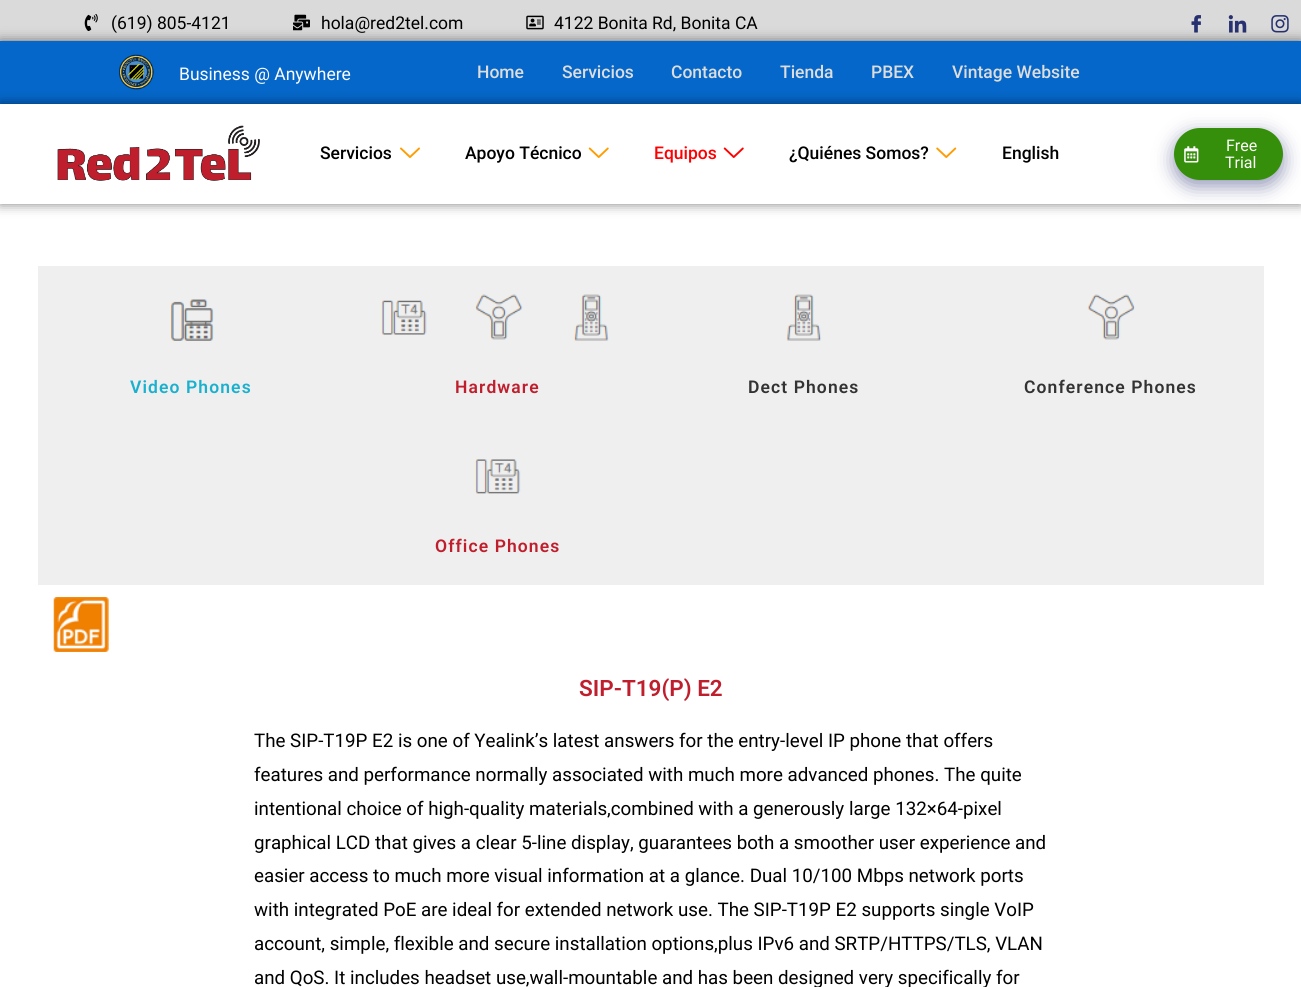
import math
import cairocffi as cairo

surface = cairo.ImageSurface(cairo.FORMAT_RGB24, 1301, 987)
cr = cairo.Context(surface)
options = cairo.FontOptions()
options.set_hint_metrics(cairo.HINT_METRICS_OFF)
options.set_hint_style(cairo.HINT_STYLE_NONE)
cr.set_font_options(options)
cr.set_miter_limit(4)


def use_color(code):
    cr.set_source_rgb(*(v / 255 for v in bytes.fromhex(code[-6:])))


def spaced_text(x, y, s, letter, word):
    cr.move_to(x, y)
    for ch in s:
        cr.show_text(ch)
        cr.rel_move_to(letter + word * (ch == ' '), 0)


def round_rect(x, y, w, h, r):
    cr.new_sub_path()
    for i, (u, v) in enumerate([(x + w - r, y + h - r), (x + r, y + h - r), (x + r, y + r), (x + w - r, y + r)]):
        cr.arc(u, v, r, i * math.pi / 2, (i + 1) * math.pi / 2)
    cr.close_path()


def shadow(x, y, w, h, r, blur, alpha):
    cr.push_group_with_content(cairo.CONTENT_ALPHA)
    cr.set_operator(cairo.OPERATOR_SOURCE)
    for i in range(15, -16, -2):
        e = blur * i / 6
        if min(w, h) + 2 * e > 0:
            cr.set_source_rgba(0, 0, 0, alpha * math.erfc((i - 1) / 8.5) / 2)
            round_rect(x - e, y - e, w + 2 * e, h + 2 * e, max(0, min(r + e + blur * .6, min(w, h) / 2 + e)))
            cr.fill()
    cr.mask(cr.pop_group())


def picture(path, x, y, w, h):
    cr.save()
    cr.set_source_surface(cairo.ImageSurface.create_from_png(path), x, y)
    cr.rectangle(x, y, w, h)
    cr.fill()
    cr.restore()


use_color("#dadada")
cr.paint()
use_color("#ffffff")
cr.rectangle(0, 204, 1301, 783)
cr.fill()
picture("img1.png", 84, 14, 14, 17)
cr.select_font_face("Roboto")
cr.set_font_size(17.5)
use_color("#000000")
cr.move_to(111, 29)
cr.show_text("(619) 805-4121")
picture("img2.png", 293, 14, 17, 17)
cr.move_to(321, 29)
cr.show_text("hola@red2tel.com")
picture("img3.png", 526, 15, 18, 15)
cr.move_to(554, 29)
cr.show_text("4122 Bonita Rd, Bonita CA")
picture("img4.png", 1191, 15, 10, 18)
picture("img5.png", 1228, 15, 19, 18)
picture("img6.png", 1271, 15, 18, 18)
use_color("#000000")
shadow(0, 41, 1301, 63, 0, 6, 0.5)
use_color("#0567ca")
cr.rectangle(0, 41, 1301, 63)
cr.fill()
picture("img7.png", 119, 54, 35, 36)
use_color("#fdfdfd")
cr.move_to(179, 80)
cr.show_text("Business @ Anywhere")
cr.select_font_face("Roboto Medium")
use_color("#dddddd")
cr.move_to(477, 78)
cr.show_text("Home")
cr.move_to(562, 78)
cr.show_text("Servicios")
cr.move_to(671, 78)
cr.show_text("Contacto")
cr.move_to(780, 78)
cr.show_text("Tienda")
cr.move_to(871, 78)
cr.show_text("PBEX")
cr.move_to(952, 78)
cr.show_text("Vintage Website")
use_color("#000000")
shadow(0, 104, 1301, 100, 0, 6, 0.5)
use_color("#ffffff")
cr.rectangle(0, 104, 1301, 100)
cr.fill()
picture("img8.png", 57, 125, 203, 56)
use_color("#000000")
cr.move_to(320, 159)
cr.show_text("Servicios")
picture("img9.png", 400, 147, 20, 11)
cr.move_to(465, 159)
cr.show_text("Apoyo Técnico")
picture("img10.png", 588, 147, 21, 11)
use_color("#ff0000")
cr.move_to(654, 159)
cr.show_text("Equipos")
picture("img11.png", 723, 147, 21, 11)
use_color("#000000")
cr.move_to(789, 159)
cr.show_text("¿Quiénes Somos?")
picture("img12.png", 936, 147, 21, 11)
cr.move_to(1002, 159)
cr.show_text("English")
use_color("#273070")
shadow(1174, 134, 109, 52, 26, 9.5, 0.51)
use_color("#368f0b")
round_rect(1174, 128, 109, 52, 26)
cr.fill()
picture("img13.png", 1184, 146, 15, 17)
cr.select_font_face("Roboto")
cr.set_font_size(16)
use_color("#fdfdfd")
cr.move_to(1226, 151)
cr.show_text("Free")
cr.move_to(1225, 168)
cr.show_text("Trial")
use_color("#efefef")
cr.rectangle(38, 266, 1226, 319)
cr.fill()
picture("img14.png", 170, 299, 44, 42)
cr.select_font_face("Roboto SemiBold")
cr.set_font_size(17.5)
use_color("#1bb0ce")
spaced_text(130, 393, "Video Phones", 1.1, 0)
picture("img15.png", 381, 300, 46, 35)
picture("img16.png", 475, 294, 48, 46)
picture("img17.png", 573, 294, 36, 47)
use_color("#bf1e2d")
spaced_text(455, 393, "Hardware", 1.1, 0)
picture("img18.png", 786, 294, 36, 47)
use_color("#333333")
spaced_text(748, 393, "Dect Phones", 1.1, 0)
picture("img19.png", 1087, 294, 49, 46)
spaced_text(1024, 393, "Conference Phones", 1.1, 0)
picture("img20.png", 475, 459, 46, 35)
use_color("#bf1e2d")
spaced_text(435, 552, "Office Phones", 1.1, 0)
picture("img21.png", 53, 597, 56, 55)
cr.set_font_size(22.5)
cr.move_to(579, 696)
cr.show_text("SIP-T19(P) E2")
cr.select_font_face("Roboto")
cr.set_font_size(18.75)
use_color("#000000")
cr.move_to(254, 747)
cr.show_text("The SIP-T19P E2 is one of Yealink’s latest answers for the entry-level IP phone that offers")
cr.move_to(254, 781)
cr.show_text("features and performance normally associated with much more advanced phones. The quite")
cr.move_to(254, 815)
cr.show_text("intentional choice of high-quality materials,combined with a generously large 132×64-pixel")
cr.move_to(254, 849)
cr.show_text("graphical LCD that gives a clear 5-line display, guarantees both a smoother user experience and")
cr.move_to(254, 882)
cr.show_text("easier access to much more visual information at a glance. Dual 10/100 Mbps network ports")
cr.move_to(254, 916)
cr.show_text("with integrated PoE are ideal for extended network use. The SIP-T19P E2 supports single VoIP")
cr.move_to(254, 950)
cr.show_text("account, simple, flexible and secure installation options,plus IPv6 and SRTP/HTTPS/TLS, VLAN")
cr.move_to(254, 984)
cr.show_text("and QoS. It includes headset use,wall-mountable and has been designed very specifically for")
surface.write_to_png("result.png")
